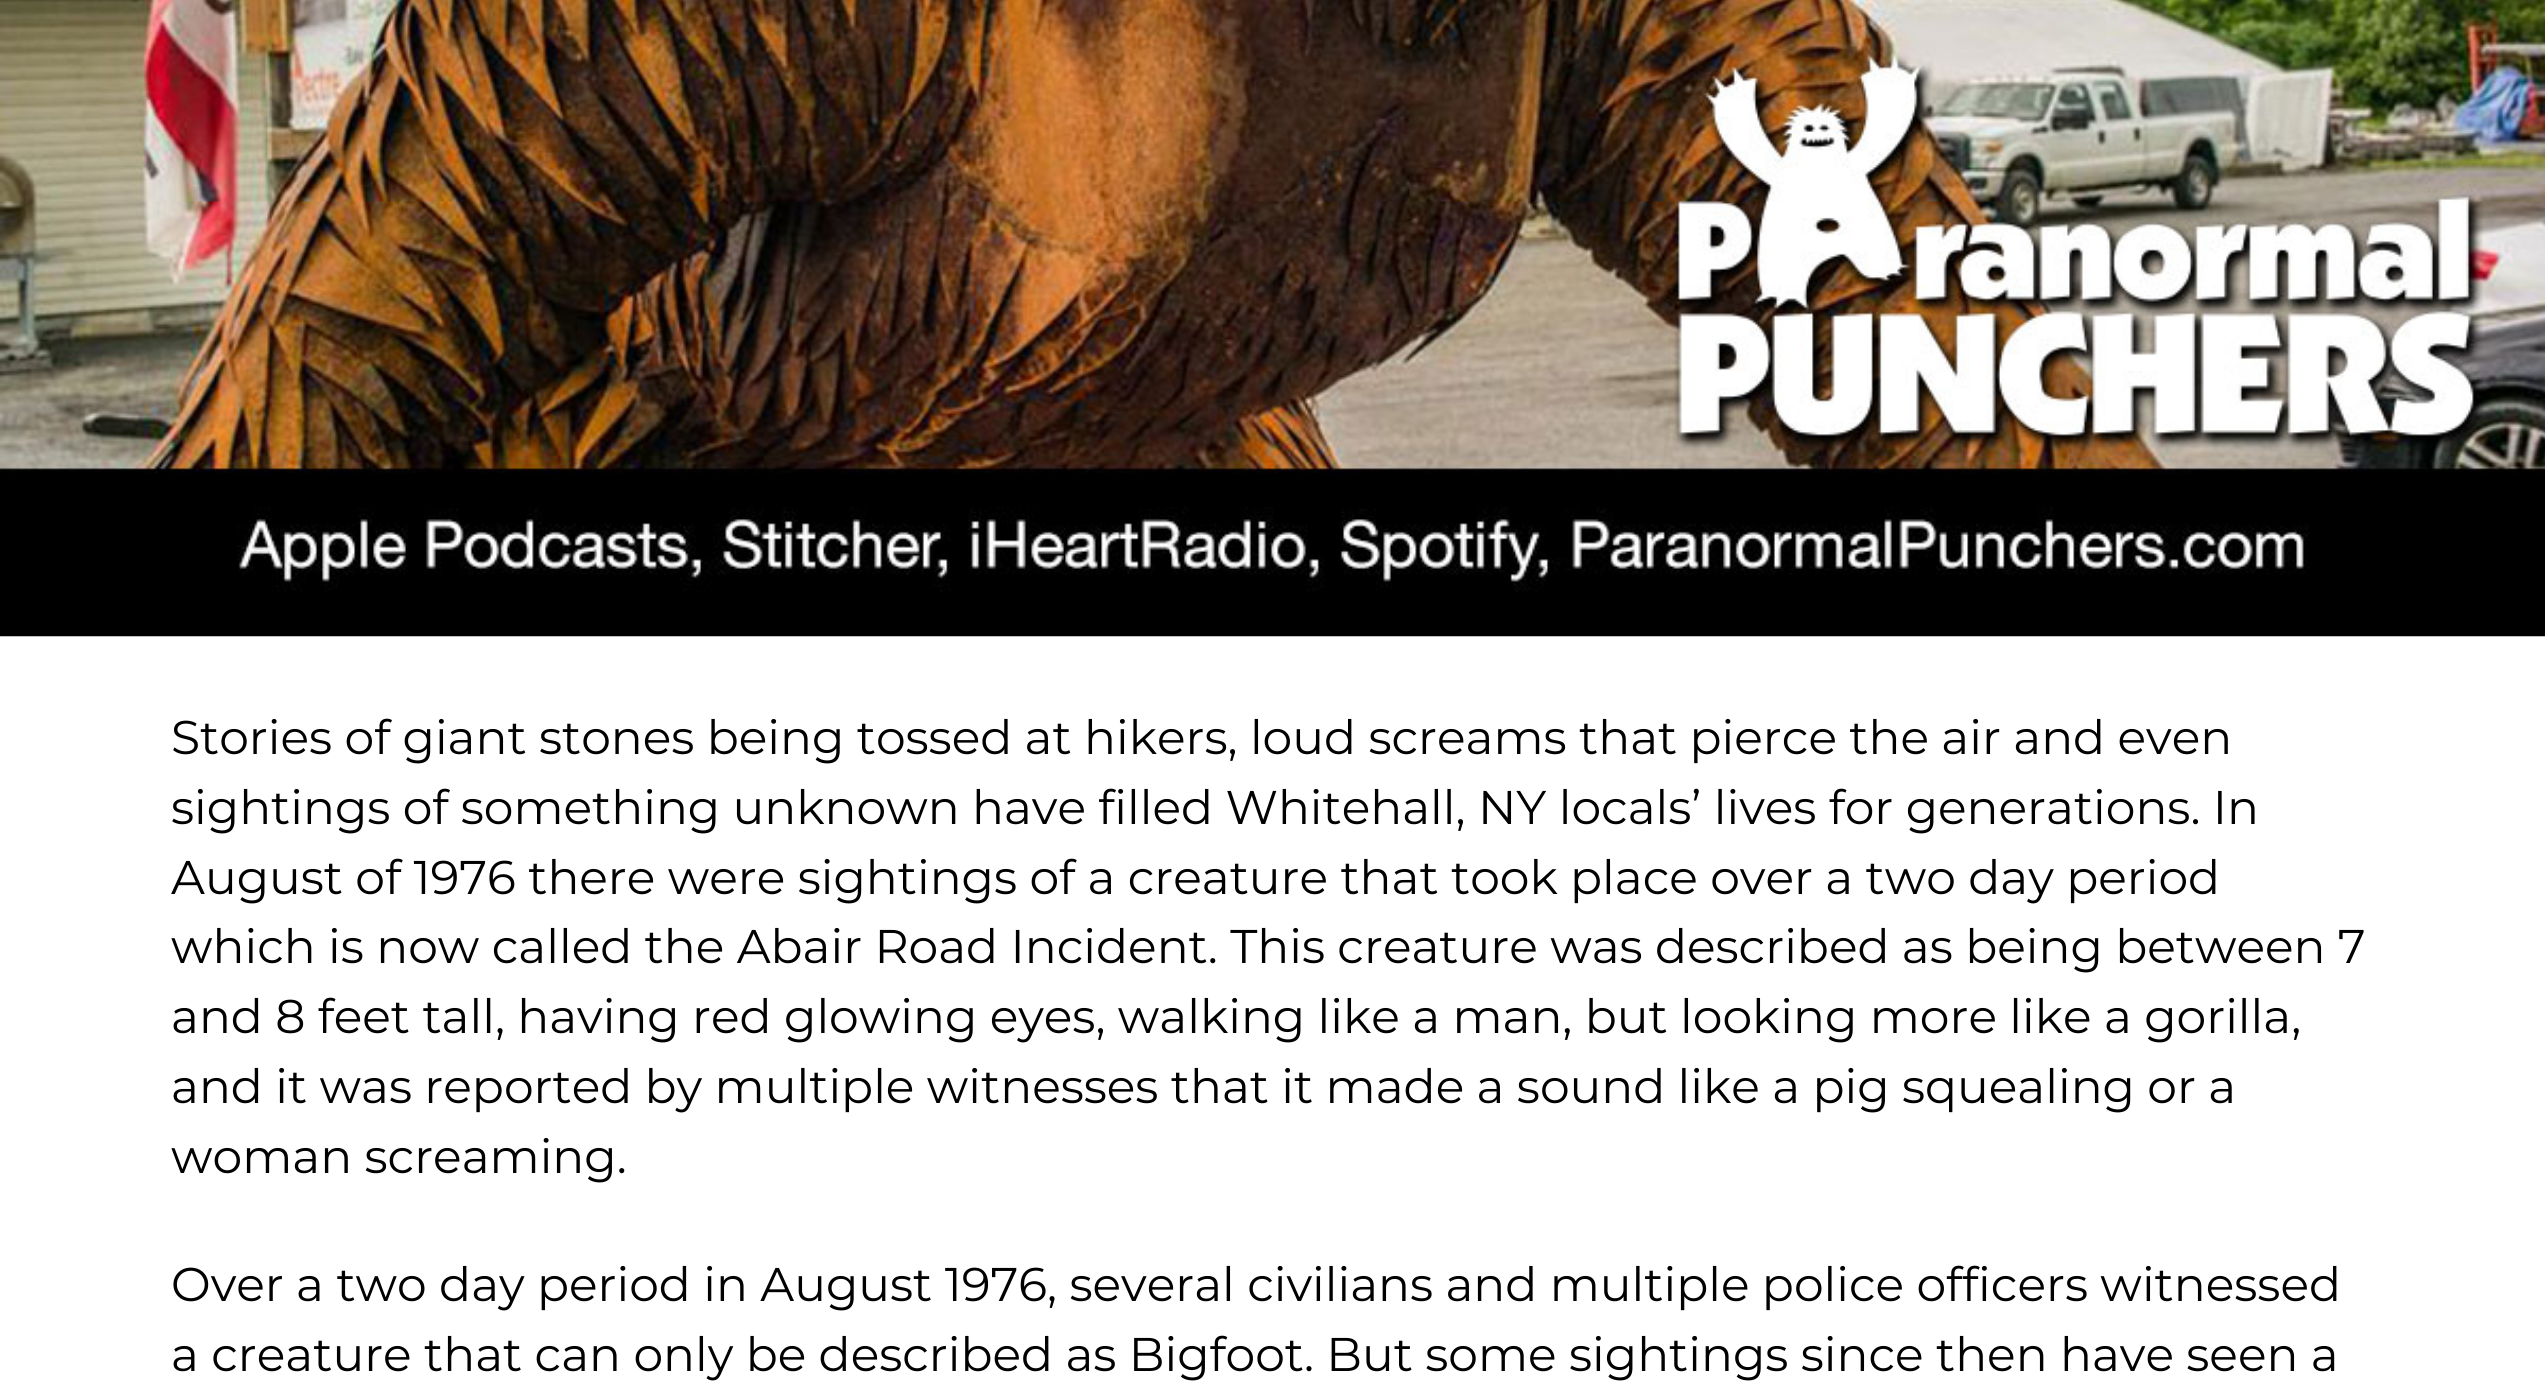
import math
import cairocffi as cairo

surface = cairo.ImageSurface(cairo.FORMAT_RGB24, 2545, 1384)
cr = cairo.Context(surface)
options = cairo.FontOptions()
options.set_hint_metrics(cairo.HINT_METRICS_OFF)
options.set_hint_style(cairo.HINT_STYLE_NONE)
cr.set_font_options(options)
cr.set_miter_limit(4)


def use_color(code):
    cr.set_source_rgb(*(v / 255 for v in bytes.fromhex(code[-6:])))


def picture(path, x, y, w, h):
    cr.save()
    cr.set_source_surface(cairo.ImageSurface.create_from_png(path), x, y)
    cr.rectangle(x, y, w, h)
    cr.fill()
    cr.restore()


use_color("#ffffff")
cr.paint()
picture("img1.png", 0, 0, 2545, 637)
cr.select_font_face("Montserrat")
cr.set_font_size(47.25)
use_color("#000000")
cr.move_to(171, 754)
cr.show_text("Stories of giant stones being tossed at hikers, loud screams that pierce the air and even")
cr.move_to(171, 824)
cr.show_text("sightings of something unknown have filled Whitehall, NY locals’ lives for generations. In")
cr.move_to(171, 894)
cr.show_text("August of 1976 there were sightings of a creature that took place over a two day period")
cr.move_to(171, 963)
cr.show_text("which is now called the Abair Road Incident. This creature was described as being between 7")
cr.move_to(171, 1033)
cr.show_text("and 8 feet tall, having red glowing eyes, walking like a man, but looking more like a gorilla,")
cr.move_to(171, 1103)
cr.show_text("and it was reported by multiple witnesses that it made a sound like a pig squealing or a")
cr.move_to(171, 1173)
cr.show_text("woman screaming.")
cr.move_to(171, 1301)
cr.show_text("Over a two day period in August 1976, several civilians and multiple police officers witnessed")
cr.move_to(171, 1371)
cr.show_text("a creature that can only be described as Bigfoot. But some sightings since then have seen a")
surface.write_to_png("result.png")
